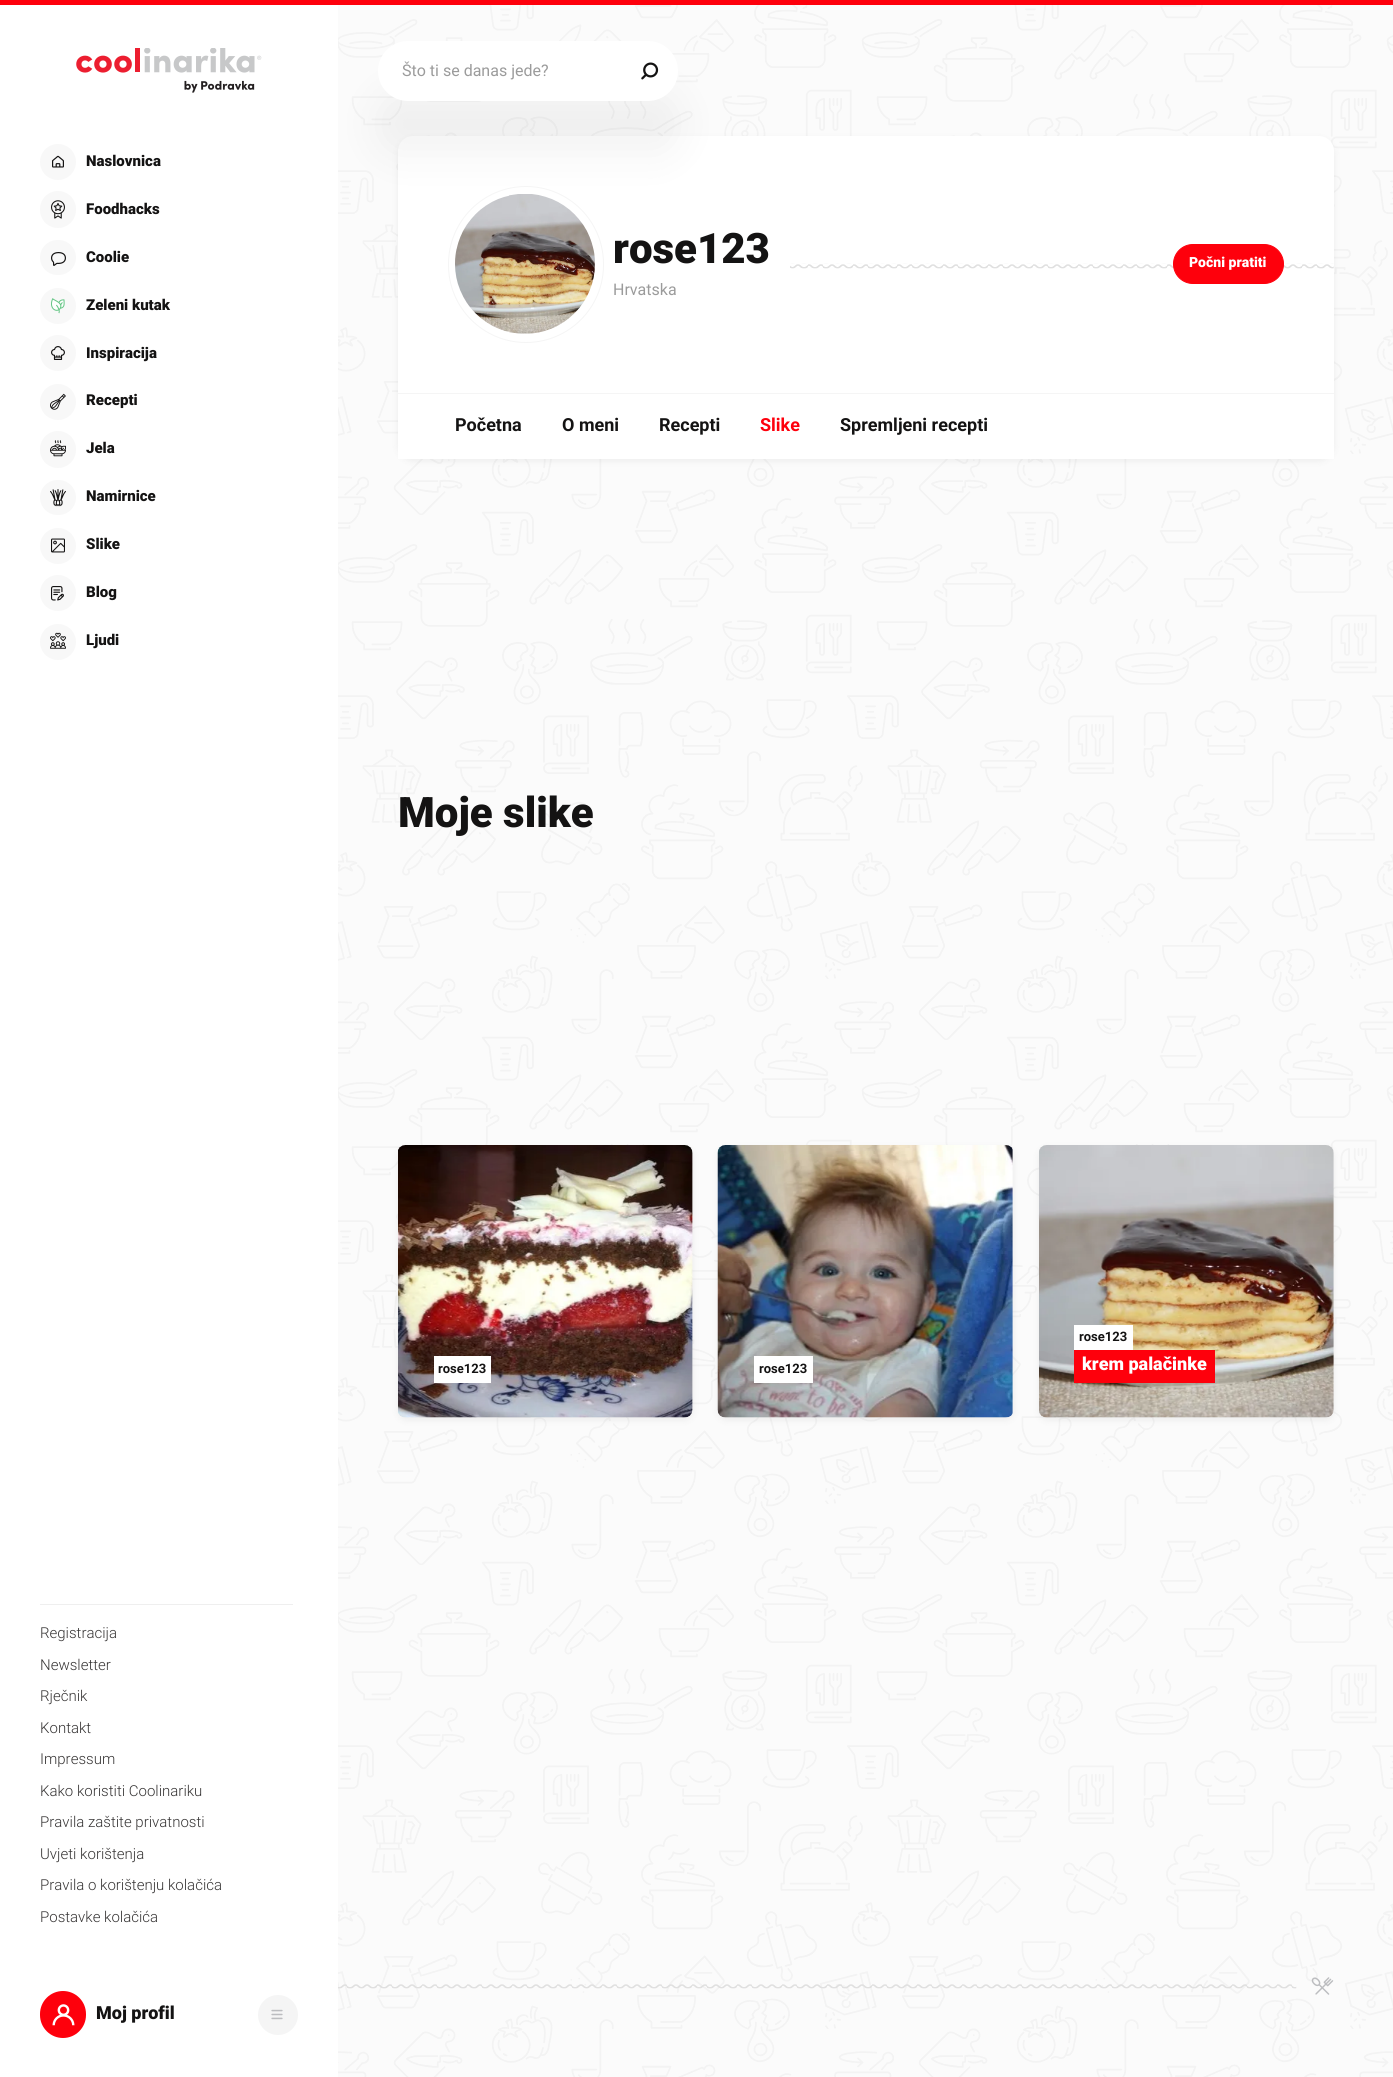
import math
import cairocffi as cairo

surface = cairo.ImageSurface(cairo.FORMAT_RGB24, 1393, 2077)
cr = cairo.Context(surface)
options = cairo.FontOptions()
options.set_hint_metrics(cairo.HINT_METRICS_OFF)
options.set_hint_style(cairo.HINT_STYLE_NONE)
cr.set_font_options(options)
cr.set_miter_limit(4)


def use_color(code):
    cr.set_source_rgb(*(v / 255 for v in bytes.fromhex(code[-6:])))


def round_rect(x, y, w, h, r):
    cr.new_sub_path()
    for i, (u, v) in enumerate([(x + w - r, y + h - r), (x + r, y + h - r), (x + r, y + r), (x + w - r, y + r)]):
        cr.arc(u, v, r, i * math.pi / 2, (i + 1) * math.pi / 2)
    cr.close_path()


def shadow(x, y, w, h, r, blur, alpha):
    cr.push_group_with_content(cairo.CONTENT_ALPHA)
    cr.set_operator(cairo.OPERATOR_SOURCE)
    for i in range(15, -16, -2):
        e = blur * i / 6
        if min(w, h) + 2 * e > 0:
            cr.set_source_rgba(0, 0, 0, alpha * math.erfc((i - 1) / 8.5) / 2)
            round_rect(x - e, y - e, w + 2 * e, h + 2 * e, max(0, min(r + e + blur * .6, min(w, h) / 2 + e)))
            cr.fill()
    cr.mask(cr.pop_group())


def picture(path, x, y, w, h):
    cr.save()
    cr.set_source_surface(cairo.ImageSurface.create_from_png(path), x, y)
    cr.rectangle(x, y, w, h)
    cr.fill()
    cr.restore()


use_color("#fbfbfb")
cr.paint()
picture("img1.png", 338, 5, 1055, 2072)
use_color("#fe000c")
cr.rectangle(0, 0, 1393, 5)
cr.fill()
use_color("#ffffff")
cr.rectangle(0, 5, 338, 2072)
cr.fill()
use_color("#000000")
shadow(398, 139, 936, 322, 15, 4, 0.06)
use_color("#ffffff")
round_rect(398, 136, 936, 323, 15)
cr.fill()
round_rect(448.5, 186.5, 155, 156, 77.5)
use_color("#f5f5f5")
cr.set_line_width(1)
cr.stroke()
picture("img17.png", 455, 194, 140, 140)
use_color("#000000")
shadow(378, 94, 300, 60, 30, 21, 0.05)
use_color("#ffffff")
round_rect(378, 41, 300, 60, 30)
cr.fill()
cr.select_font_face("Roboto")
cr.set_font_size(16)
use_color("#9b9b9b")
cr.move_to(402, 76)
cr.show_text("Što ti se danas jede?")
picture("img2.png", 641, 62, 18, 18)
picture("img3.png", 76, 48, 186, 45)
use_color("#f8f8f8")
cr.arc(58, 162, 18, 0, 2 * math.pi)
cr.fill()
picture("img4.png", 52, 155, 12, 13)
cr.select_font_face("Roboto Black")
cr.set_font_size(15)
use_color("#141313")
cr.move_to(86, 166)
cr.show_text("Naslovnica")
use_color("#f8f8f8")
round_rect(40, 191, 36, 37, 18)
cr.fill()
picture("img5.png", 51, 200, 14, 19)
use_color("#141313")
cr.move_to(86, 214)
cr.show_text("Foodhacks")
use_color("#f8f8f8")
round_rect(40, 240, 36, 35, 17.5)
cr.fill()
picture("img6.png", 51, 252, 15, 14)
use_color("#141313")
cr.move_to(86, 262)
cr.show_text("Coolie")
use_color("#f8f8f8")
cr.new_path()
cr.arc(58, 306, 18, 0, 2 * math.pi)
cr.fill()
picture("img7.png", 51, 298, 14, 16)
use_color("#141313")
cr.move_to(86, 310)
cr.show_text("Zeleni kutak")
use_color("#f8f8f8")
cr.new_path()
cr.arc(58, 353, 18, 0, 2 * math.pi)
cr.fill()
picture("img8.png", 51, 346, 14, 14)
use_color("#141313")
cr.move_to(86, 358)
cr.show_text("Inspiracija")
use_color("#f8f8f8")
cr.new_path()
cr.arc(58, 402, 18, 0, 2 * math.pi)
cr.fill()
picture("img9.png", 50, 393, 16, 17)
use_color("#141313")
cr.move_to(86, 405)
cr.show_text("Recepti")
use_color("#f8f8f8")
round_rect(40, 431, 36, 37, 18)
cr.fill()
picture("img10.png", 50, 440, 16, 17)
use_color("#141313")
cr.move_to(86, 453)
cr.show_text("Jela")
use_color("#f8f8f8")
round_rect(40, 480, 36, 35, 17.5)
cr.fill()
picture("img11.png", 50, 489, 16, 18)
use_color("#141313")
cr.move_to(86, 501)
cr.show_text("Namirnice")
use_color("#f8f8f8")
cr.new_path()
cr.arc(58, 546, 18, 0, 2 * math.pi)
cr.fill()
picture("img12.png", 51, 538, 14, 15)
use_color("#141313")
cr.move_to(86, 549)
cr.show_text("Slike")
use_color("#f8f8f8")
cr.new_path()
cr.arc(58, 593, 18, 0, 2 * math.pi)
cr.fill()
picture("img13.png", 51, 586, 13, 15)
use_color("#141313")
cr.move_to(86, 597)
cr.show_text("Blog")
use_color("#f8f8f8")
cr.new_path()
cr.arc(58, 642, 18, 0, 2 * math.pi)
cr.fill()
picture("img14.png", 50, 632, 16, 17)
use_color("#141313")
cr.move_to(86, 645)
cr.show_text("Ljudi")
use_color("#efefef")
cr.rectangle(40, 1604, 253, 1)
cr.fill()
cr.select_font_face("Roboto Light")
use_color("#373535")
cr.move_to(40, 1638)
cr.show_text("Registracija")
cr.move_to(40, 1670)
cr.show_text("Newsletter")
cr.move_to(40, 1701)
cr.show_text("Rječnik")
cr.move_to(40, 1733)
cr.show_text("Kontakt")
cr.move_to(40, 1764)
cr.show_text("Impressum")
cr.move_to(40, 1796)
cr.show_text("Kako koristiti Coolinariku")
cr.move_to(40, 1827)
cr.show_text("Pravila zaštite privatnosti")
cr.move_to(40, 1859)
cr.show_text("Uvjeti korištenja")
cr.move_to(40, 1890)
cr.show_text("Pravila o korištenju kolačića")
cr.move_to(40, 1922)
cr.show_text("Postavke kolačića")
use_color("#fe000c")
round_rect(40, 1991, 46, 47, 23)
cr.fill()
picture("img15.png", 52, 2004, 23, 22)
cr.select_font_face("Roboto Black")
cr.set_font_size(18)
use_color("#141313")
cr.move_to(96, 2019)
cr.show_text("Moj profil")
use_color("#f5f5f5")
cr.new_path()
cr.arc(278, 2015, 20, 0, 2 * math.pi)
cr.fill()
picture("img16.png", 271, 2009, 12, 11)
cr.set_font_size(42)
use_color("#141313")
cr.move_to(613, 263)
cr.show_text("rose123")
cr.select_font_face("Roboto")
cr.set_font_size(16)
use_color("#9b9b9b")
cr.move_to(613, 295)
cr.show_text("Hrvatska")
picture("img18.png", 790, 263, 544, 6)
use_color("#fe000c")
round_rect(1173.5, 244.5, 110, 39, 19.5)
cr.fill_preserve()
cr.stroke()
cr.select_font_face("Roboto Black")
cr.set_font_size(14)
use_color("#ffffff")
cr.move_to(1189, 267)
cr.show_text("Počni pratiti")
cr.rectangle(398, 446, 936, 13)
cr.fill()
use_color("#f5f5f5")
cr.rectangle(398, 393, 936, 1)
cr.fill()
cr.select_font_face("Roboto", cairo.FONT_SLANT_NORMAL, cairo.FONT_WEIGHT_BOLD)
cr.set_font_size(18)
use_color("#141313")
cr.move_to(455, 431)
cr.show_text("Početna")
cr.move_to(562, 431)
cr.show_text("O meni")
cr.move_to(659, 431)
cr.show_text("Recepti")
use_color("#fe000c")
cr.move_to(760, 431)
cr.show_text("Slike")
use_color("#141313")
cr.move_to(840, 431)
cr.show_text("Spremljeni recepti")
cr.select_font_face("Roboto Black")
cr.set_font_size(42)
cr.move_to(398, 827)
cr.show_text("Moje slike")
use_color("#000000")
shadow(398, 1148, 295, 272, 8, 4, 0.06)
picture("img19.png", 398, 1145, 295, 273)
use_color("#ffffff")
cr.rectangle(434, 1356, 57, 27)
cr.fill()
cr.select_font_face("Roboto", cairo.FONT_SLANT_NORMAL, cairo.FONT_WEIGHT_BOLD)
cr.set_font_size(13)
use_color("#141313")
cr.move_to(438, 1373)
cr.show_text("rose123")
use_color("#000000")
shadow(718, 1148, 296, 272, 8, 4, 0.06)
picture("img20.png", 717, 1145, 296, 273)
use_color("#ffffff")
cr.rectangle(754, 1356, 59, 27)
cr.fill()
use_color("#141313")
cr.move_to(759, 1373)
cr.show_text("rose123")
use_color("#000000")
shadow(1039, 1148, 295, 272, 8, 4, 0.06)
picture("img21.png", 1039, 1145, 295, 273)
use_color("#ffffff")
cr.rectangle(1074, 1325, 59, 25)
cr.fill()
use_color("#141313")
cr.move_to(1079, 1341)
cr.show_text("rose123")
use_color("#fe000c")
cr.rectangle(1074, 1350, 141, 33)
cr.fill()
cr.select_font_face("Roboto Black")
cr.set_font_size(18)
use_color("#ffffff")
cr.move_to(1082, 1370)
cr.show_text("krem palačinke")
picture("img22.png", 338, 1984, 959, 5)
picture("img23.png", 1311, 1977, 23, 18)
surface.write_to_png("result.png")
